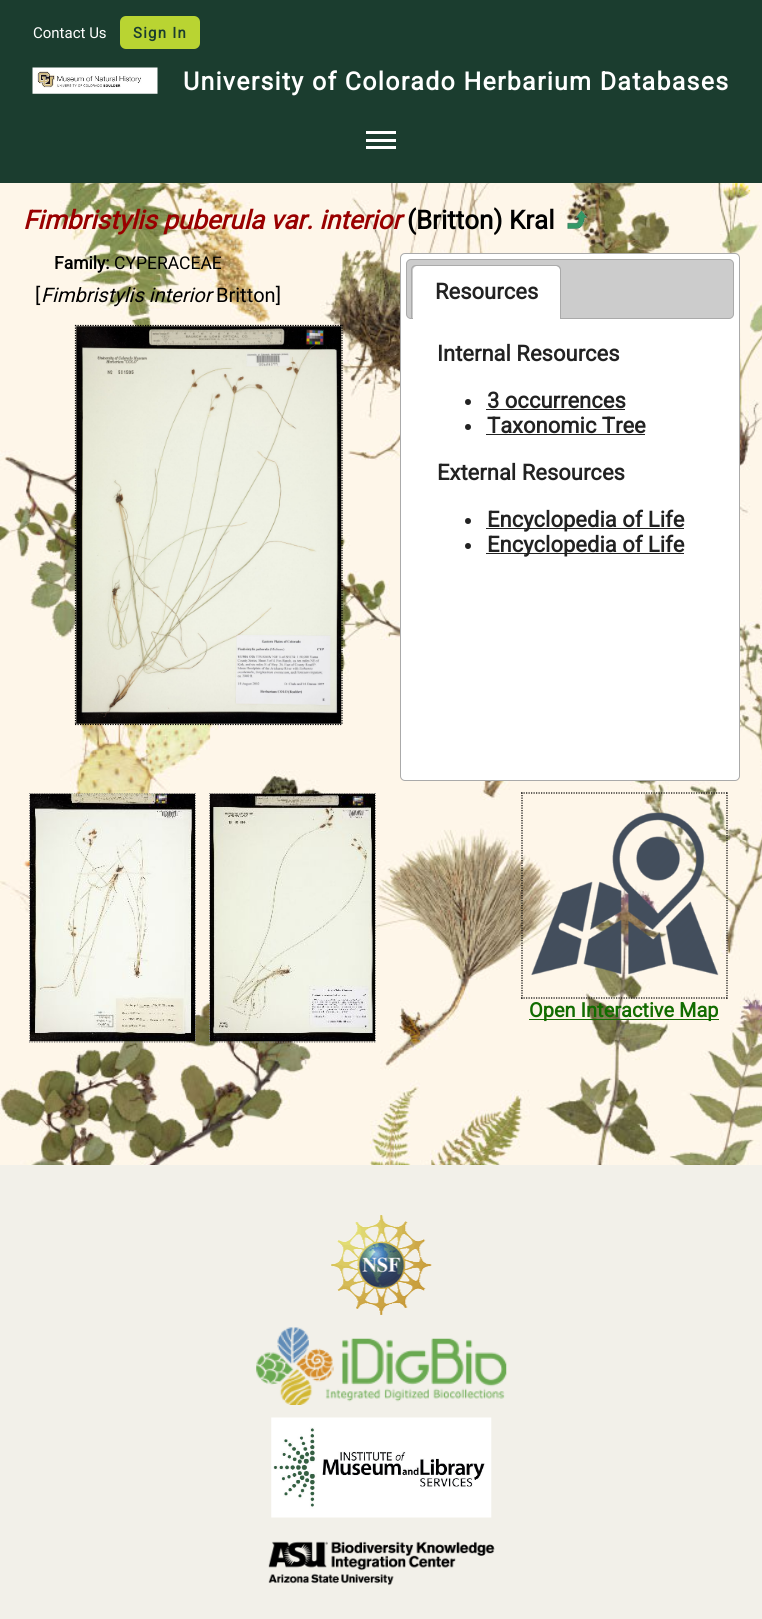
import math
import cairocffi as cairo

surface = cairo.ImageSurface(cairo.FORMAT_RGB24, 762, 1619)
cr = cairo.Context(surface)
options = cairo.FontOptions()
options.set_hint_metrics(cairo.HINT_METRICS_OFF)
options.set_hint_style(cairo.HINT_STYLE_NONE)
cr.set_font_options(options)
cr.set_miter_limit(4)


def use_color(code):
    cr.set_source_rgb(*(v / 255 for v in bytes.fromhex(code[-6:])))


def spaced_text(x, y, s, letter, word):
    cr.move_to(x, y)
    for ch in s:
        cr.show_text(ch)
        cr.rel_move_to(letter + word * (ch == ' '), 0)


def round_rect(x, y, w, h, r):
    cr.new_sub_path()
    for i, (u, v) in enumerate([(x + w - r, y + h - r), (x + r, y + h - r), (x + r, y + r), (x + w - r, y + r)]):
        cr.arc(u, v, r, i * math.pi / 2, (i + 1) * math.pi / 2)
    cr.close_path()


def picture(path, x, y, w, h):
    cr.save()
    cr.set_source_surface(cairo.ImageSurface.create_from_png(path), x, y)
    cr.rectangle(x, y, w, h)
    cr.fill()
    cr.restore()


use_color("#ffffff")
cr.paint()
picture("img1.png", 0, 183, 762, 982)
use_color("#1b3d2f")
cr.rectangle(0, 0, 762, 183)
cr.fill()
cr.select_font_face("Roboto")
cr.set_font_size(15)
use_color("#ffffff")
cr.move_to(33, 38)
cr.show_text("Contact Us")
use_color("#b9d432")
round_rect(120, 16, 80, 33, 6)
cr.fill()
cr.select_font_face("Roboto", cairo.FONT_SLANT_NORMAL, cairo.FONT_WEIGHT_BOLD)
use_color("#1b3d2f")
spaced_text(133, 38, "Sign In", 1.25, 0)
picture("img2.png", 32, 67, 126, 27)
cr.set_font_size(25)
use_color("#ffffff")
spaced_text(183, 90, "University of Colorado Herbarium Databases", 1.25, 0)
cr.rectangle(366, 139, 30, 3)
cr.fill()
cr.rectangle(366, 131, 30, 3)
cr.fill()
cr.rectangle(366, 146, 30, 3)
cr.fill()
cr.select_font_face("Roboto", cairo.FONT_SLANT_ITALIC, cairo.FONT_WEIGHT_BOLD)
cr.set_font_size(26)
use_color("#990000")
cr.move_to(23, 229)
cr.show_text("Fimbristylis puberula var. interior")
cr.select_font_face("Roboto", cairo.FONT_SLANT_NORMAL, cairo.FONT_WEIGHT_BOLD)
use_color("#000000")
cr.move_to(407, 229)
cr.show_text("(Britton) Kral")
picture("img3.png", 567, 210, 21, 19)
cr.set_font_size(17.5)
cr.move_to(54, 269)
cr.show_text("Family:")
cr.select_font_face("Roboto")
cr.move_to(114, 269)
cr.show_text("CYPERACEAE")
cr.set_font_size(20)
cr.move_to(35, 302)
cr.show_text("[")
cr.select_font_face("Roboto", cairo.FONT_SLANT_ITALIC)
cr.move_to(41, 302)
cr.show_text("Fimbristylis interior")
cr.select_font_face("Roboto")
cr.move_to(216, 302)
cr.show_text("Britton]")
cr.new_path()
cr.move_to(75, 325.5)
cr.line_to(342.5, 325.5)
cr.set_line_width(1.2)
cr.set_dash([1.25, 1.25])
cr.stroke()
cr.new_path()
cr.move_to(342, 325)
cr.line_to(342, 725)
cr.stroke()
cr.new_path()
cr.move_to(75, 724.5)
cr.line_to(342.5, 724.5)
cr.stroke()
cr.new_path()
cr.move_to(75.5, 325)
cr.line_to(75.5, 725)
cr.stroke()
picture("img4.png", 76, 326, 266, 398)
use_color("#ffffff")
round_rect(400.5, 253.5, 339, 527, 4.5)
cr.fill_preserve()
use_color("#aaaaaa")
cr.set_line_width(1)
cr.set_dash([])
cr.stroke()
use_color("#cccccc")
round_rect(406.5, 259.5, 327, 59, 4.5)
cr.fill_preserve()
use_color("#aaaaaa")
cr.stroke()
use_color("#ffffff")
cr.new_path()
cr.move_to(417, 266)
cr.line_to(556, 266)
cr.curve_to(558, 266, 560, 268, 560, 270)
cr.line_to(560, 319)
cr.line_to(413, 319)
cr.line_to(413, 270)
cr.curve_to(413, 268, 415, 266, 417, 266)
cr.close_path()
cr.fill()
use_color("#aaaaaa")
cr.set_fill_rule(cairo.FILL_RULE_EVEN_ODD)
cr.new_path()
cr.move_to(416, 265)
cr.line_to(556, 265)
cr.curve_to(559, 265, 561, 267, 561, 270)
cr.line_to(561, 319)
cr.line_to(411, 319)
cr.line_to(411, 270)
cr.curve_to(411, 267, 413, 265, 416, 265)
cr.close_path()
cr.move_to(416, 266)
cr.line_to(556, 266)
cr.curve_to(558, 266, 560, 268, 560, 270)
cr.line_to(560, 319)
cr.line_to(412, 319)
cr.line_to(412, 270)
cr.curve_to(412, 268, 414, 266, 416, 266)
cr.close_path()
cr.fill()
cr.select_font_face("Roboto", cairo.FONT_SLANT_NORMAL, cairo.FONT_WEIGHT_BOLD)
cr.set_font_size(22)
use_color("#222222")
cr.move_to(435, 299)
cr.show_text("Resources")
cr.move_to(437, 361)
cr.show_text("Internal Resources")
cr.new_path()
cr.arc(468, 402, 3, 0, 2 * math.pi)
cr.fill()
cr.move_to(487, 408)
cr.show_text("3 occurrences")
cr.rectangle(486, 409, 139, 1)
cr.fill()
cr.arc(468, 427, 3, 0, 2 * math.pi)
cr.fill()
cr.move_to(487, 433)
cr.show_text("Taxonomic Tree")
cr.rectangle(486, 434, 159, 1)
cr.fill()
cr.move_to(437, 480)
cr.show_text("External Resources")
cr.new_path()
cr.arc(468, 521, 3, 0, 2 * math.pi)
cr.fill()
cr.rectangle(486, 528, 198, 1)
cr.fill()
cr.move_to(487, 527)
cr.show_text("Encyclopedia of Life")
cr.new_path()
cr.arc(468, 546, 3, 0, 2 * math.pi)
cr.fill()
cr.rectangle(486, 553, 198, 1)
cr.fill()
cr.move_to(487, 552)
cr.show_text("Encyclopedia of Life")
cr.save()
cr.set_fill_rule(cairo.FILL_RULE_WINDING)
cr.rectangle(29, 793, 167, 275)
cr.clip()
cr.new_path()
cr.move_to(29, 793)
cr.line_to(196, 793)
use_color("#808080")
cr.set_line_width(1.2)
cr.set_dash([1.25, 1.25])
cr.stroke()
cr.new_path()
cr.move_to(195.5, 792.5)
cr.line_to(195.5, 1042.5)
cr.stroke()
cr.restore()
cr.new_path()
cr.move_to(29, 1042)
cr.line_to(196, 1042)
use_color("#808080")
cr.set_line_width(1.2)
cr.set_dash([1.25, 1.25])
cr.stroke()
cr.save()
cr.set_fill_rule(cairo.FILL_RULE_WINDING)
cr.rectangle(29, 793, 167, 275)
cr.clip()
cr.new_path()
cr.move_to(29.5, 792.5)
cr.line_to(29.5, 1042.5)
cr.stroke()
cr.restore()
picture("img5.png", 30, 793, 165, 249)
cr.save()
cr.set_fill_rule(cairo.FILL_RULE_WINDING)
cr.rectangle(209, 793, 167, 275)
cr.clip()
cr.new_path()
cr.move_to(209, 793)
cr.line_to(376, 793)
cr.stroke()
cr.new_path()
cr.move_to(375.5, 792.5)
cr.line_to(375.5, 1042.5)
cr.stroke()
cr.restore()
cr.new_path()
cr.move_to(209, 1042)
cr.line_to(376, 1042)
cr.stroke()
cr.save()
cr.set_fill_rule(cairo.FILL_RULE_WINDING)
cr.rectangle(209, 793, 167, 275)
cr.clip()
cr.new_path()
cr.move_to(209.5, 792.5)
cr.line_to(209.5, 1042.5)
cr.stroke()
cr.restore()
picture("img6.png", 210, 793, 165, 249)
cr.new_path()
cr.move_to(521, 793)
cr.line_to(727.5, 793)
use_color("#000000")
cr.stroke()
cr.new_path()
cr.move_to(727, 792.5)
cr.line_to(727, 999)
cr.stroke()
cr.new_path()
cr.move_to(521, 998)
cr.line_to(727.5, 998)
cr.stroke()
cr.new_path()
cr.move_to(522, 792.5)
cr.line_to(522, 999)
cr.stroke()
picture("img7.png", 531, 812, 188, 164)
use_color("#126c00")
cr.rectangle(529, 1019, 190, 1)
cr.fill()
cr.set_font_size(20)
cr.move_to(529, 1017)
cr.show_text("Open Interactive Map")
use_color("#f2f0e9")
cr.rectangle(0, 1165, 762, 454)
cr.fill()
picture("img8.png", 331, 1215, 101, 100)
picture("img9.png", 256, 1327, 251, 78)
picture("img10.png", 271, 1417, 221, 101)
picture("img11.png", 268, 1541, 227, 45)
surface.write_to_png("result.png")
